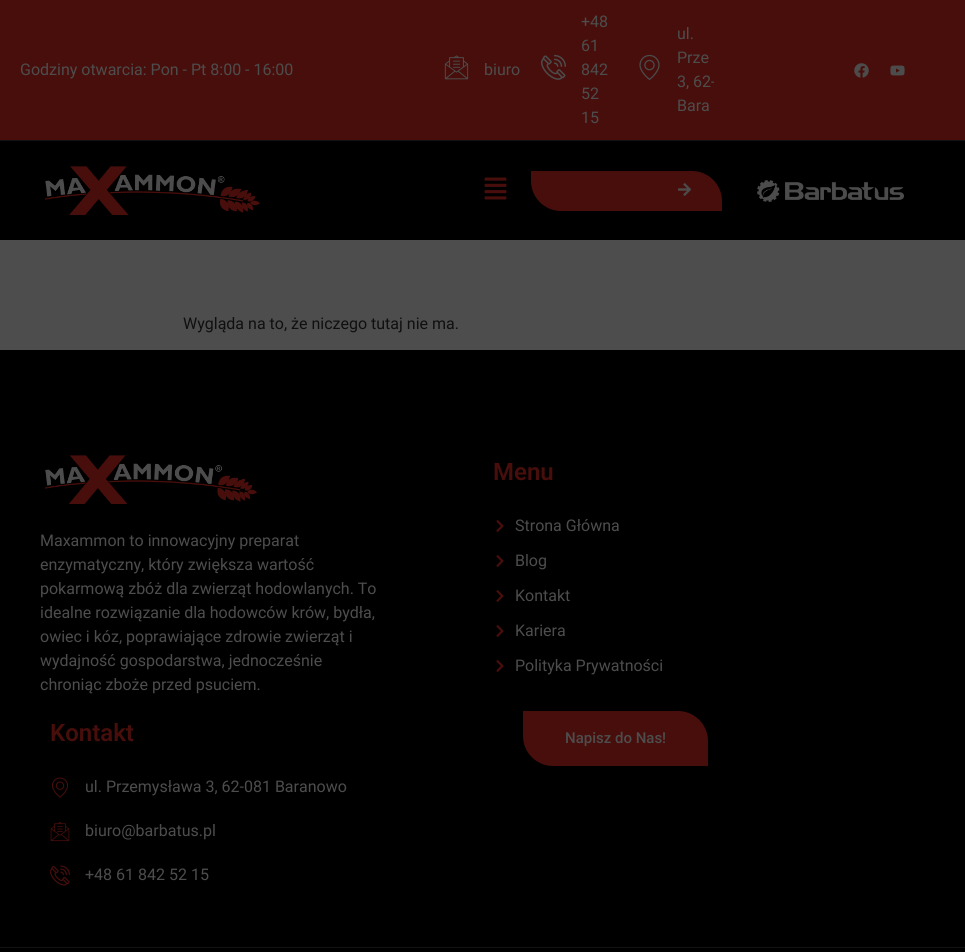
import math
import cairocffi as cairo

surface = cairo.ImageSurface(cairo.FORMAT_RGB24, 965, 952)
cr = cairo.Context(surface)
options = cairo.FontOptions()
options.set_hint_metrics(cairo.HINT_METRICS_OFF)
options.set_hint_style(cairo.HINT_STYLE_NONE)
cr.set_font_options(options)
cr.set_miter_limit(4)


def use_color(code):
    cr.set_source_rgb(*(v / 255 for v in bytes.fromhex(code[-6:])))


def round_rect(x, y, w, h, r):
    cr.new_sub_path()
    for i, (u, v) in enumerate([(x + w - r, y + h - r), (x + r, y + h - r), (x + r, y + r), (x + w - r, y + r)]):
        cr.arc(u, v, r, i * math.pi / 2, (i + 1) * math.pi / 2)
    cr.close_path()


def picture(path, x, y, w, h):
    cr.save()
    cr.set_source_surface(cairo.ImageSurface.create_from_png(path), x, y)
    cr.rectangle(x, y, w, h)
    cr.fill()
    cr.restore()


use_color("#4d4d4d")
cr.paint()
use_color("#470e0b")
cr.rectangle(0, 0, 965, 140)
cr.fill()
cr.select_font_face("Roboto")
cr.set_font_size(16)
use_color("#4d4d4d")
cr.move_to(20, 75)
cr.show_text("Godziny otwarcia: Pon - Pt 8:00 - 16:00")
picture("img1.png", 444, 55, 25, 25)
cr.move_to(484, 75)
cr.show_text("biuro")
picture("img2.png", 541, 54, 25, 26)
cr.move_to(581, 27)
cr.show_text("+48")
cr.move_to(581, 51)
cr.show_text("61")
cr.move_to(581, 75)
cr.show_text("842")
cr.move_to(581, 99)
cr.show_text("52")
cr.move_to(581, 123)
cr.show_text("15")
picture("img3.png", 639, 54, 21, 26)
cr.move_to(677, 39)
cr.show_text("ul.")
cr.move_to(677, 63)
cr.show_text("Prze")
cr.save()
round_rect(637, 22, 77, 96, 5)
cr.clip()
cr.move_to(677, 87)
cr.show_text("3, 62-")
cr.restore()
cr.move_to(677, 111)
cr.show_text("Bara")
picture("img4.png", 854, 63, 15, 15)
picture("img5.png", 890, 65, 15, 11)
use_color("#000000")
cr.rectangle(0, 141, 965, 99)
cr.fill()
use_color("#121212")
cr.rectangle(0, 140, 965, 1)
cr.fill()
picture("img6.png", 45, 166, 215, 49)
picture("img7.png", 484, 177, 23, 23)
use_color("#470e0b")
cr.new_path()
cr.move_to(531, 171)
cr.line_to(692, 171)
cr.curve_to(708.5, 171, 722, 184.5, 722, 201)
cr.line_to(722, 211)
cr.line_to(561, 211)
cr.curve_to(544.5, 211, 531, 197.5, 531, 181)
cr.close_path()
cr.fill()
picture("img8.png", 677, 183, 14, 13)
picture("img9.png", 757, 180, 147, 22)
use_color("#0f0f0f")
cr.move_to(183, 329)
cr.show_text("Wygląda na to, że niczego tutaj nie ma.")
use_color("#000000")
cr.rectangle(0, 350, 965, 597)
cr.fill()
picture("img10.png", 45, 455, 212, 49)
use_color("#4d4d4d")
cr.move_to(40, 546)
cr.show_text("Maxammon to innowacyjny preparat")
cr.move_to(40, 570)
cr.show_text("enzymatyczny, który zwiększa wartość")
cr.move_to(40, 594)
cr.show_text("pokarmową zbóż dla zwierząt hodowlanych. To")
cr.move_to(40, 618)
cr.show_text("idealne rozwiązanie dla hodowców krów, bydła,")
cr.move_to(40, 642)
cr.show_text("owiec i kóz, poprawiające zdrowie zwierząt i")
cr.move_to(40, 666)
cr.show_text("wydajność gospodarstwa, jednocześnie")
cr.move_to(40, 690)
cr.show_text("chroniąc zboże przed psuciem.")
cr.select_font_face("Roboto SemiBold")
cr.set_font_size(24)
use_color("#470e0b")
cr.move_to(493, 480)
cr.show_text("Menu")
picture("img11.png", 496, 520, 8, 12)
cr.select_font_face("Roboto")
cr.set_font_size(16)
use_color("#4d4d4d")
cr.move_to(515, 531)
cr.show_text("Strona Główna")
picture("img11.png", 496, 555, 8, 12)
cr.move_to(515, 566)
cr.show_text("Blog")
picture("img11.png", 496, 590, 8, 12)
cr.move_to(515, 601)
cr.show_text("Kontakt")
picture("img11.png", 496, 625, 8, 12)
cr.move_to(515, 636)
cr.show_text("Kariera")
picture("img11.png", 496, 660, 8, 12)
cr.move_to(515, 671)
cr.show_text("Polityka Prywatności")
cr.select_font_face("Roboto SemiBold")
cr.set_font_size(24)
use_color("#470e0b")
cr.move_to(50, 741)
cr.show_text("Kontakt")
picture("img12.png", 51, 777, 18, 21)
cr.select_font_face("Roboto")
cr.set_font_size(16)
use_color("#4d4d4d")
cr.move_to(85, 792)
cr.show_text("ul. Przemysława 3, 62-081 Baranowo")
picture("img13.png", 50, 822, 20, 20)
cr.move_to(85, 836)
cr.show_text("biuro@barbatus.pl")
picture("img14.png", 50, 865, 20, 21)
cr.move_to(85, 880)
cr.show_text("+48 61 842 52 15")
use_color("#470e0b")
cr.new_path()
cr.move_to(523, 711)
cr.line_to(678, 711)
cr.curve_to(694.5, 711, 708, 724.5, 708, 741)
cr.line_to(708, 766)
cr.line_to(553, 766)
cr.curve_to(536.5, 766, 523, 752.5, 523, 736)
cr.close_path()
cr.fill()
cr.select_font_face("Roboto Medium")
cr.set_font_size(15)
use_color("#4d4d4d")
cr.move_to(565, 743)
cr.show_text("Napisz do Nas!")
use_color("#000000")
cr.rectangle(0, 948, 965, 4)
cr.fill()
use_color("#121212")
cr.rectangle(0, 947, 965, 1)
cr.fill()
surface.write_to_png("result.png")
